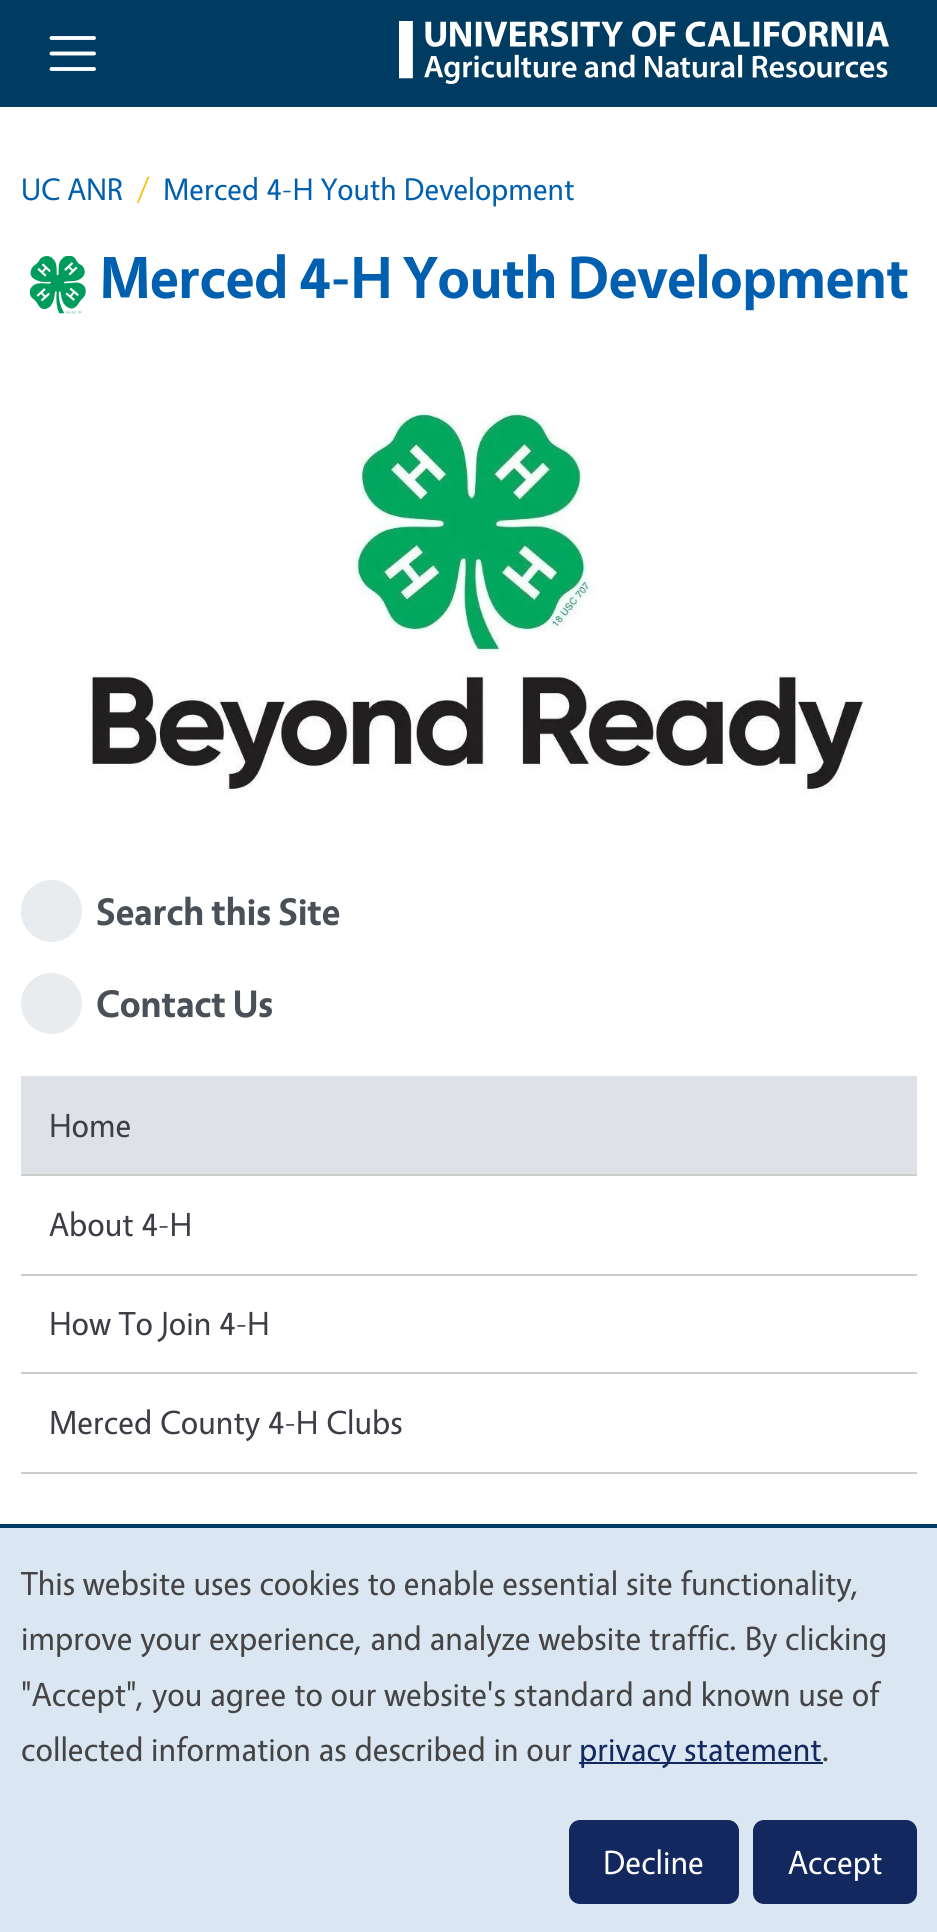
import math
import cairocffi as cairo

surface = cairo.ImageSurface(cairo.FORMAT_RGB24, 937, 1932)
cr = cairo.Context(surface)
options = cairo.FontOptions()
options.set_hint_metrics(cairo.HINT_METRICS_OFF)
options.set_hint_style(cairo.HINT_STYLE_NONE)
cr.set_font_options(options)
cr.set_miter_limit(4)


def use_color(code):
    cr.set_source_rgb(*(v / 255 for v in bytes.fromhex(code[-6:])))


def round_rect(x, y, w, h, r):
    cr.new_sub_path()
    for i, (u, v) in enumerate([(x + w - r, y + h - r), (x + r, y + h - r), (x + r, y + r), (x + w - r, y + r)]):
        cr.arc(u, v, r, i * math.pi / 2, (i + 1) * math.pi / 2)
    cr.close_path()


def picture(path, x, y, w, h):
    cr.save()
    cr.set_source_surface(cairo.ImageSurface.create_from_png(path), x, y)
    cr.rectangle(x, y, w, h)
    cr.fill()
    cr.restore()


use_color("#ffffff")
cr.paint()
use_color("#003c61")
cr.rectangle(0, 0, 937, 107)
cr.fill()
cr.new_path()
cr.move_to(51.5, 38)
cr.line_to(94, 38)
cr.move_to(51.5, 53.5)
cr.line_to(94, 53.5)
cr.move_to(51.5, 69)
cr.line_to(94, 69)
use_color("#ffffff")
cr.set_line_width(3.9)
cr.set_line_cap(cairo.LINE_CAP_ROUND)
cr.stroke()
picture("img1.png", 399, 21, 490, 63)
cr.select_font_face("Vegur")
cr.set_font_size(31.25)
use_color("#005fae")
cr.move_to(21, 200)
cr.show_text("UC ANR")
use_color("#fdbd10")
cr.move_to(137, 200)
cr.show_text("/")
use_color("#005fae")
cr.move_to(163, 200)
cr.show_text("Merced 4-H Youth Development")
picture("img2.png", 30, 256, 56, 58)
cr.select_font_face("Vegur", cairo.FONT_SLANT_NORMAL, cairo.FONT_WEIGHT_BOLD)
cr.set_font_size(59.6)
cr.move_to(100, 298)
cr.show_text("Merced 4-H Youth Development")
picture("img3.png", 88, 411, 776, 383)
use_color("#e9ecef")
round_rect(21, 880, 61, 62, 30.5)
cr.fill()
cr.set_font_size(38.5)
use_color("#495057")
cr.move_to(96, 925)
cr.show_text("Search this Site")
use_color("#e9ecef")
cr.new_path()
cr.arc(51.5, 1003.5, 30.5, 0, 2 * math.pi)
cr.fill()
use_color("#495057")
cr.move_to(96, 1017)
cr.show_text("Contact Us")
use_color("#dee2e6")
cr.rectangle(21, 1076, 896, 98)
cr.fill()
use_color("#cccccc")
cr.rectangle(21, 1174, 896, 2)
cr.fill()
cr.select_font_face("Vegur")
cr.set_font_size(33.6)
use_color("#3d3d47")
cr.move_to(49, 1137)
cr.show_text("Home")
use_color("#cccccc")
cr.rectangle(21, 1274, 896, 2)
cr.fill()
use_color("#3d3d47")
cr.move_to(49, 1236)
cr.show_text("About 4-H")
use_color("#cccccc")
cr.rectangle(21, 1372, 896, 2)
cr.fill()
use_color("#3d3d47")
cr.move_to(49, 1335)
cr.show_text("How To Join 4-H")
use_color("#cccccc")
cr.rectangle(21, 1472, 896, 2)
cr.fill()
use_color("#3d3d47")
cr.move_to(49, 1434)
cr.show_text("Merced County 4-H Clubs")
use_color("#dae7f3")
cr.rectangle(0, 1528, 937, 404)
cr.fill()
use_color("#003c61")
cr.rectangle(0, 1524, 937, 4)
cr.fill()
use_color("#444444")
cr.move_to(21, 1595)
cr.show_text("This website uses cookies to enable essential site functionality,")
cr.move_to(21, 1650)
cr.show_text("improve your experience, and analyze website traffic. By clicking")
cr.move_to(21, 1706)
cr.show_text("\"Accept\", you agree to our website's standard and known use of")
cr.move_to(21, 1761)
cr.show_text("collected information as described in our")
use_color("#12285f")
cr.rectangle(579, 1762, 244, 2)
cr.fill()
cr.move_to(579, 1761)
cr.show_text("privacy statement")
use_color("#444444")
cr.move_to(822, 1761)
cr.show_text(".")
use_color("#12285f")
round_rect(571.5, 1822.5, 165, 79, 8.5)
cr.fill_preserve()
cr.set_line_width(5)
cr.set_line_cap(cairo.LINE_CAP_BUTT)
cr.stroke()
use_color("#ffffff")
cr.move_to(603, 1874)
cr.show_text("Decline")
use_color("#12285f")
round_rect(755.5, 1822.5, 159, 79, 8.5)
cr.fill_preserve()
cr.stroke()
use_color("#ffffff")
cr.move_to(788, 1874)
cr.show_text("Accept")
surface.write_to_png("result.png")
